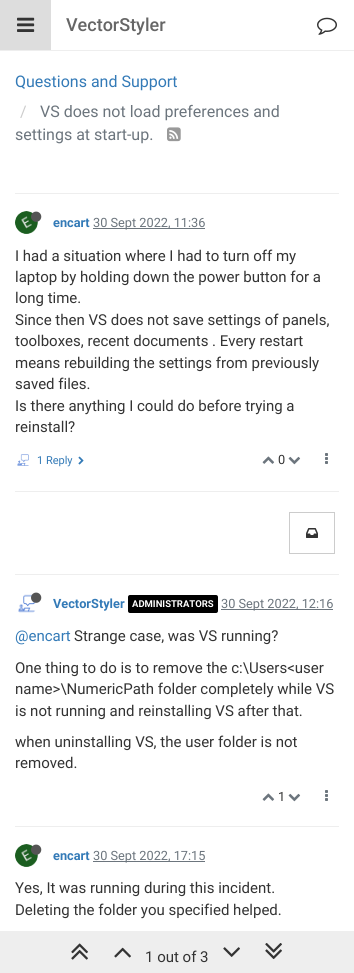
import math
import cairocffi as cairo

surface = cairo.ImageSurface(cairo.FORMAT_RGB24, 354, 973)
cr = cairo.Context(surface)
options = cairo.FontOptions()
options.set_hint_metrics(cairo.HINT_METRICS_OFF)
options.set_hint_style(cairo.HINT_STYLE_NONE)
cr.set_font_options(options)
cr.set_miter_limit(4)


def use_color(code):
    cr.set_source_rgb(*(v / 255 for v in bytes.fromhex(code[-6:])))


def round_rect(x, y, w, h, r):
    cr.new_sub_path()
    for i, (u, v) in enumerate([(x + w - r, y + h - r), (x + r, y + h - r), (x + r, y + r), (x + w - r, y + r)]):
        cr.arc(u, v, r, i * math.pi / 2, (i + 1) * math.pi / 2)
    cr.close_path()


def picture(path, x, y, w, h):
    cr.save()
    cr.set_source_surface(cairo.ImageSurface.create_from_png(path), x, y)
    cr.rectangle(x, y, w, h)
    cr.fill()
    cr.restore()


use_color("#ffffff")
cr.paint()
use_color("#eeeeee")
cr.rectangle(0, 50, 354, 1)
cr.fill()
use_color("#dddddd")
cr.rectangle(0, 0, 51, 50)
cr.fill()
picture("img1.png", 17, 17, 18, 15)
cr.select_font_face("Roboto Medium")
cr.set_font_size(18)
use_color("#666666")
cr.move_to(66, 31)
cr.show_text("VectorStyler")
picture("img2.png", 317, 17, 20, 18)
cr.select_font_face("Roboto")
cr.set_font_size(16)
use_color("#337ab7")
cr.move_to(15, 87)
cr.show_text("Questions and Support")
use_color("#6c757d")
cr.move_to(40, 117)
cr.show_text("VS does not load preferences and")
cr.move_to(15, 140)
cr.show_text("settings at start-up.")
picture("img3.png", 167, 127, 14, 15)
use_color("#cccccc")
cr.move_to(20, 117)
cr.show_text("/")
use_color("#eeeeee")
cr.rectangle(15, 193, 324, 1)
cr.fill()
picture("img4.png", 15, 211, 23, 23)
picture("img5.png", 31, 211, 11, 11)
cr.select_font_face("Roboto", cairo.FONT_SLANT_NORMAL, cairo.FONT_WEIGHT_BOLD)
cr.set_font_size(12.75)
use_color("#337ab7")
cr.move_to(53, 227)
cr.show_text("encart")
use_color("#6c757d")
cr.rectangle(93, 228, 112, 1)
cr.fill()
cr.select_font_face("Roboto")
cr.move_to(93, 227)
cr.show_text("30 Sept 2022, 11:36")
cr.set_font_size(15)
use_color("#333333")
cr.move_to(15, 261)
cr.show_text("I had a situation where I had to turn off my")
cr.move_to(15, 282)
cr.show_text("laptop by holding down the power button for a")
cr.move_to(15, 303)
cr.show_text("long time.")
cr.move_to(15, 325)
cr.show_text("Since then VS does not save settings of panels,")
cr.move_to(15, 346)
cr.show_text("toolboxes, recent documents . Every restart")
cr.move_to(15, 368)
cr.show_text("means rebuilding the settings from previously")
cr.move_to(15, 389)
cr.show_text("saved files.")
cr.move_to(15, 411)
cr.show_text("Is there anything I could do before trying a")
cr.move_to(15, 432)
cr.show_text("reinstall?")
picture("img6.png", 17, 454, 12, 12)
cr.set_font_size(11)
use_color("#337ab7")
cr.move_to(37, 464)
cr.show_text("1 Reply")
picture("img7.png", 78, 456, 6, 9)
picture("img8.png", 262, 456, 13, 8)
cr.set_font_size(12.75)
use_color("#333333")
cr.move_to(278, 464)
cr.show_text("0")
picture("img9.png", 288, 456, 13, 9)
picture("img10.png", 325, 453, 3, 11)
use_color("#eeeeee")
cr.rectangle(15, 491, 324, 1)
cr.fill()
cr.rectangle(289.5, 512.5, 45, 41)
use_color("#cccccc")
cr.set_line_width(1)
cr.stroke()
picture("img11.png", 306, 528, 12, 10)
use_color("#eeeeee")
cr.rectangle(15, 574, 324, 1)
cr.fill()
picture("img12.png", 18, 594, 18, 19)
picture("img13.png", 31, 592, 11, 11)
cr.select_font_face("Roboto", cairo.FONT_SLANT_NORMAL, cairo.FONT_WEIGHT_BOLD)
use_color("#337ab7")
cr.move_to(53, 608)
cr.show_text("VectorStyler")
use_color("#000000")
round_rect(128, 595, 90, 18, 2)
cr.fill()
cr.set_font_size(9.5)
use_color("#ffffff")
cr.move_to(132, 607)
cr.show_text("ADMINISTRATORS")
use_color("#6c757d")
cr.rectangle(221, 609, 112, 1)
cr.fill()
cr.select_font_face("Roboto")
cr.set_font_size(12.75)
cr.move_to(221, 608)
cr.show_text("30 Sept 2022, 12:16")
cr.set_font_size(15)
use_color("#337ab7")
cr.move_to(15, 641)
cr.show_text("@encart")
use_color("#333333")
cr.move_to(74, 641)
cr.show_text("Strange case, was VS running?")
cr.move_to(15, 673)
cr.show_text("One thing to do is to remove the c:\\Users<user")
cr.move_to(15, 694)
cr.show_text("name>\\NumericPath folder completely while VS")
cr.move_to(15, 716)
cr.show_text("is not running and reinstalling VS after that.")
cr.move_to(15, 747)
cr.show_text("when uninstalling VS, the user folder is not")
cr.move_to(15, 768)
cr.show_text("removed.")
picture("img8.png", 262, 793, 13, 8)
cr.set_font_size(12.75)
cr.move_to(278, 801)
cr.show_text("1")
picture("img9.png", 288, 793, 13, 9)
picture("img10.png", 325, 790, 3, 11)
use_color("#eeeeee")
cr.rectangle(15, 826, 324, 1)
cr.fill()
picture("img4.png", 15, 844, 23, 23)
picture("img5.png", 31, 844, 11, 11)
cr.select_font_face("Roboto", cairo.FONT_SLANT_NORMAL, cairo.FONT_WEIGHT_BOLD)
use_color("#337ab7")
cr.move_to(53, 860)
cr.show_text("encart")
use_color("#6c757d")
cr.rectangle(93, 861, 112, 1)
cr.fill()
cr.select_font_face("Roboto")
cr.move_to(93, 860)
cr.show_text("30 Sept 2022, 17:15")
cr.set_font_size(15)
use_color("#333333")
cr.move_to(15, 893)
cr.show_text("Yes, It was running during this incident.")
cr.move_to(15, 915)
cr.show_text("Deleting the folder you specified helped.")
use_color("#eeeeee")
cr.rectangle(0, 931, 354, 42)
cr.fill()
picture("img14.png", 71, 943, 17, 17)
picture("img15.png", 114, 947, 17, 11)
use_color("#333333")
cr.move_to(145, 962)
cr.show_text("1 out of 3")
picture("img16.png", 223, 947, 17, 10)
picture("img17.png", 265, 943, 17, 17)
surface.write_to_png("result.png")
